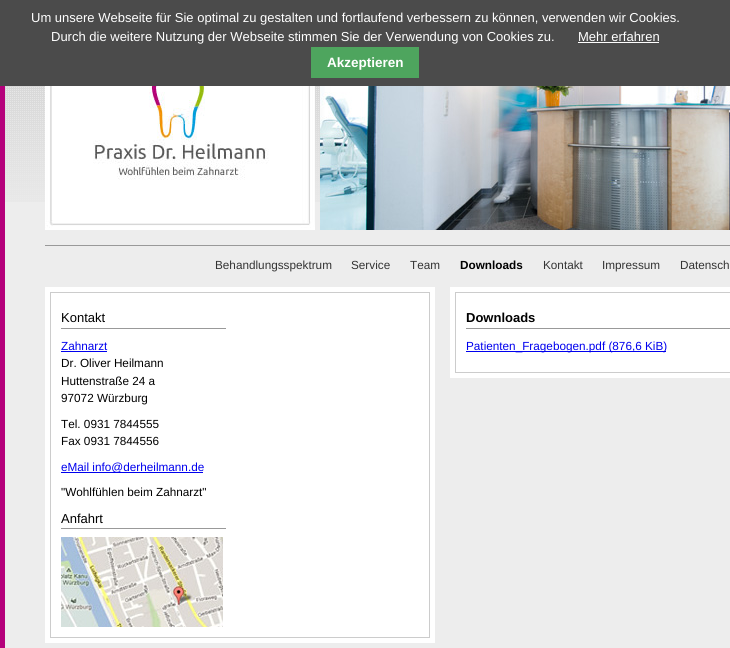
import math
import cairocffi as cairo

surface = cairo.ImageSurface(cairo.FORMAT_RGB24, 730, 648)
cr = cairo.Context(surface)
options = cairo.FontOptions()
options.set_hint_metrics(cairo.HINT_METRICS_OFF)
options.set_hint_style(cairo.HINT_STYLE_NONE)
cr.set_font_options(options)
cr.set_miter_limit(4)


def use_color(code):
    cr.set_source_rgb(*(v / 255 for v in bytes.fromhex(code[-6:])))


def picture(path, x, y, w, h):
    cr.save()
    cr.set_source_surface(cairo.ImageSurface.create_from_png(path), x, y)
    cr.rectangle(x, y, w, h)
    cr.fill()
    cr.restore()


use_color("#ededed")
cr.paint()
use_color("#b5007b")
cr.new_path()
cr.move_to(0, 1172)
cr.line_to(0, 0)
cr.line_to(5, 0)
cr.line_to(5, 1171)
cr.close_path()
cr.fill()
use_color("#4b4b4b")
cr.rectangle(0, 0, 730, 86)
cr.fill()
cr.select_font_face("Liberation Sans")
cr.set_font_size(13)
use_color("#ffffff")
cr.move_to(31, 22)
cr.show_text("Um unsere Webseite für Sie optimal zu gestalten und fortlaufend verbessern zu können, verwenden wir Cookies.")
cr.move_to(51, 41)
cr.show_text("Durch die weitere Nutzung der Webseite stimmen Sie der Verwendung von Cookies zu.")
cr.move_to(578, 41)
cr.show_text("Mehr erfahren")
cr.rectangle(578, 42, 81, 1)
cr.fill()
use_color("#4ea55e")
cr.rectangle(311, 47, 108, 31)
cr.fill()
cr.select_font_face("Liberation Sans", cairo.FONT_SLANT_NORMAL, cairo.FONT_WEIGHT_BOLD)
cr.set_font_size(13.5)
use_color("#ffffff")
cr.move_to(327, 67)
cr.show_text("Akzeptieren")
picture("img1.png", 5, 86, 315, 116)
picture("img2.png", 45, 86, 270, 144)
picture("img3.png", 320, 86, 410, 144)
use_color("#999999")
cr.rectangle(45, 245, 685, 1)
cr.fill()
cr.select_font_face("Liberation Sans")
cr.set_font_size(11.75)
use_color("#333333")
cr.move_to(215, 269)
cr.show_text("Behandlungsspektrum")
cr.move_to(351, 269)
cr.show_text("Service")
cr.move_to(410, 269)
cr.show_text("Team")
cr.select_font_face("Liberation Sans", cairo.FONT_SLANT_NORMAL, cairo.FONT_WEIGHT_BOLD)
use_color("#000000")
cr.move_to(460, 269)
cr.show_text("Downloads")
cr.select_font_face("Liberation Sans")
use_color("#333333")
cr.move_to(543, 269)
cr.show_text("Kontakt")
cr.move_to(602, 269)
cr.show_text("Impressum")
cr.move_to(680, 269)
cr.show_text("Datensch")
use_color("#ffffff")
cr.rectangle(45, 287, 390, 356)
cr.fill()
cr.rectangle(50.5, 292.5, 379, 345)
use_color("#cccccc")
cr.set_line_width(1)
cr.stroke()
use_color("#999999")
cr.rectangle(61, 328, 165, 1)
cr.fill()
cr.set_font_size(13)
use_color("#000000")
cr.move_to(61, 322)
cr.show_text("Kontakt")
cr.set_font_size(11.75)
use_color("#0000ee")
cr.move_to(61, 350)
cr.show_text("Zahnarzt")
cr.rectangle(61, 351, 46, 1)
cr.fill()
use_color("#000000")
cr.move_to(61, 367)
cr.show_text("Dr. Oliver Heilmann")
cr.move_to(61, 385)
cr.show_text("Huttenstraße 24 a")
cr.move_to(61, 402)
cr.show_text("97072 Würzburg")
cr.move_to(61, 428)
cr.show_text("Tel. 0931 7844555")
cr.move_to(61, 445)
cr.show_text("Fax 0931 7844556")
use_color("#0000ee")
cr.rectangle(61, 472, 142, 1)
cr.fill()
cr.move_to(61, 471)
cr.show_text("eMail info@derheilmann.de")
use_color("#000000")
cr.move_to(61, 496)
cr.show_text("\"Wohlfühlen beim Zahnarzt\"")
use_color("#999999")
cr.rectangle(61, 528, 165, 1)
cr.fill()
cr.set_font_size(13)
use_color("#000000")
cr.move_to(61, 523)
cr.show_text("Anfahrt")
picture("img4.png", 61, 537, 162, 90)
use_color("#ffffff")
cr.rectangle(450, 287, 280, 91)
cr.fill()
cr.rectangle(455.5, 292.5, 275, 80)
use_color("#cccccc")
cr.stroke()
use_color("#999999")
cr.rectangle(466, 328, 264, 1)
cr.fill()
cr.select_font_face("Liberation Sans", cairo.FONT_SLANT_NORMAL, cairo.FONT_WEIGHT_BOLD)
use_color("#000000")
cr.move_to(466, 322)
cr.show_text("Downloads")
use_color("#0000ee")
cr.rectangle(466, 351, 200, 1)
cr.fill()
cr.select_font_face("Liberation Sans")
cr.set_font_size(11.75)
cr.move_to(466, 350)
cr.show_text("Patienten_Fragebogen.pdf (876,6 KiB)")
surface.write_to_png("result.png")
